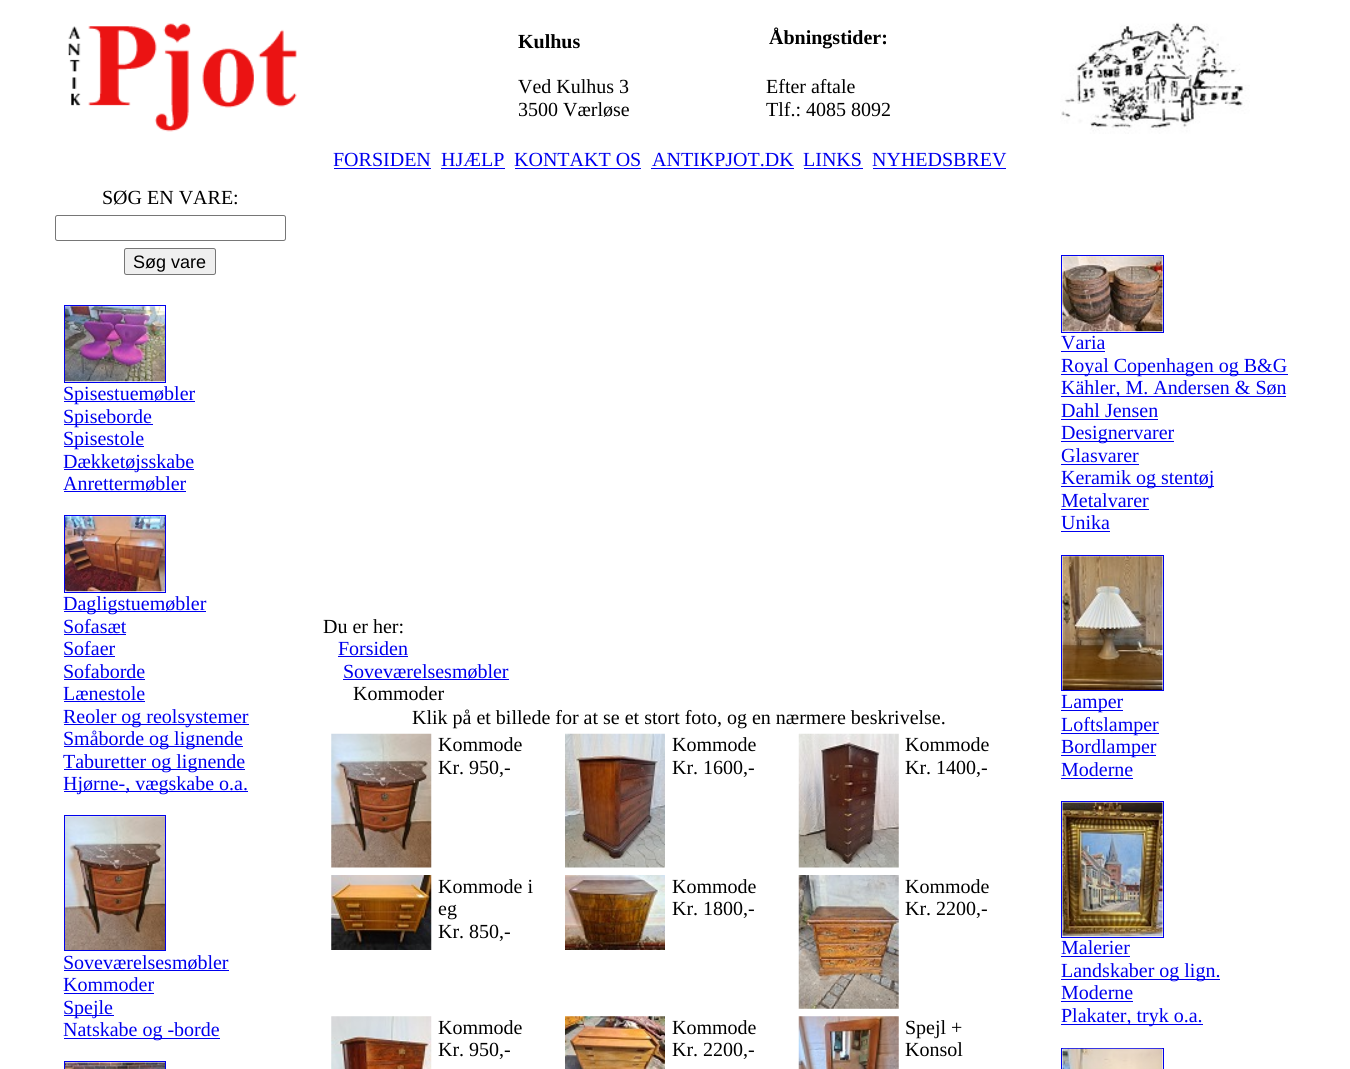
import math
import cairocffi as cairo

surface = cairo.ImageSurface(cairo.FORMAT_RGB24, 1350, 1069)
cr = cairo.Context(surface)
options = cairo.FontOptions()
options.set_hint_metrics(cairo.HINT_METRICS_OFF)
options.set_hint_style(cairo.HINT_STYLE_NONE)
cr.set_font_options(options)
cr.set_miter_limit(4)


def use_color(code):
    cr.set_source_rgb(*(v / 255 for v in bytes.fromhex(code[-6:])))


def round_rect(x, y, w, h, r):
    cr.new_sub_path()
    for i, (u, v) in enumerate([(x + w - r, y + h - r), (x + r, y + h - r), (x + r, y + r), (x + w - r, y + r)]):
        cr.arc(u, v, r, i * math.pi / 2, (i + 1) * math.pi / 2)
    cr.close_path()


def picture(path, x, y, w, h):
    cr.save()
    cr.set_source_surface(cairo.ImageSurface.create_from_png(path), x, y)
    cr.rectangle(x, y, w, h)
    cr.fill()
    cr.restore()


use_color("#ffffff")
cr.paint()
picture("img1.png", 68, 23, 229, 109)
cr.select_font_face("Liberation Serif", cairo.FONT_SLANT_NORMAL, cairo.FONT_WEIGHT_BOLD)
cr.set_font_size(20)
use_color("#000000")
cr.move_to(518, 48)
cr.show_text("Kulhus")
cr.select_font_face("Liberation Serif")
cr.move_to(518, 93)
cr.show_text("Ved Kulhus 3")
cr.move_to(518, 116)
cr.show_text("3500 Værløse")
cr.select_font_face("Liberation Serif", cairo.FONT_SLANT_NORMAL, cairo.FONT_WEIGHT_BOLD)
cr.move_to(769, 44)
cr.show_text("Åbningstider:")
cr.select_font_face("Liberation Serif")
cr.move_to(766, 93)
cr.show_text("Efter aftale")
cr.move_to(766, 116)
cr.show_text("Tlf.: 4085 8092")
picture("img2.png", 1060, 22, 190, 112)
use_color("#0000ee")
cr.move_to(333, 166)
cr.show_text("FORSIDEN")
cr.rectangle(334, 168, 97, 1)
cr.fill()
cr.move_to(441, 166)
cr.show_text("HJÆLP")
cr.rectangle(441, 168, 64, 1)
cr.fill()
cr.move_to(514, 166)
cr.show_text("KONTAKT OS")
cr.rectangle(515, 168, 126, 1)
cr.fill()
cr.move_to(652, 166)
cr.show_text("ANTIKPJOT.DK")
cr.rectangle(651, 168, 143, 1)
cr.fill()
cr.move_to(803, 166)
cr.show_text("LINKS")
cr.rectangle(804, 168, 59, 1)
cr.fill()
cr.move_to(872, 166)
cr.show_text("NYHEDSBREV")
cr.rectangle(873, 168, 133, 1)
cr.fill()
use_color("#000000")
cr.move_to(102, 204)
cr.show_text("SØG EN VARE:")
round_rect(55.5, 215.5, 230, 25, 2)
use_color("#767676")
cr.set_line_width(1)
cr.stroke()
use_color("#efefef")
round_rect(124.5, 248.5, 91, 26, 2)
cr.fill_preserve()
use_color("#767676")
cr.stroke()
cr.select_font_face("Liberation Sans")
cr.set_font_size(18)
use_color("#000000")
cr.move_to(133, 268)
cr.show_text("Søg vare")
cr.rectangle(64.5, 305.5, 101, 77)
use_color("#0000ee")
cr.stroke()
picture("img3.png", 65, 306, 100, 76)
cr.rectangle(64, 401, 131, 1)
cr.fill()
cr.select_font_face("Liberation Serif")
cr.set_font_size(20)
cr.move_to(63, 400)
cr.show_text("Spisestuemøbler")
cr.rectangle(64, 424, 89, 1)
cr.fill()
cr.move_to(63, 423)
cr.show_text("Spiseborde")
cr.rectangle(64, 446, 80, 1)
cr.fill()
cr.move_to(63, 445)
cr.show_text("Spisestole")
cr.rectangle(64, 469, 130, 1)
cr.fill()
cr.move_to(63, 468)
cr.show_text("Dækketøjsskabe")
cr.move_to(63, 490)
cr.show_text("Anrettermøbler")
cr.rectangle(64, 491, 122, 1)
cr.fill()
cr.rectangle(64.5, 515.5, 101, 77)
cr.stroke()
picture("img4.png", 65, 516, 100, 76)
cr.rectangle(64, 611, 142, 1)
cr.fill()
cr.move_to(63, 610)
cr.show_text("Dagligstuemøbler")
cr.move_to(63, 633)
cr.show_text("Sofasæt")
cr.rectangle(64, 634, 62, 1)
cr.fill()
cr.move_to(63, 655)
cr.show_text("Sofaer")
cr.rectangle(64, 656, 51, 1)
cr.fill()
cr.move_to(63, 678)
cr.show_text("Sofaborde")
cr.rectangle(64, 679, 81, 1)
cr.fill()
cr.move_to(63, 700)
cr.show_text("Lænestole")
cr.rectangle(64, 701, 81, 1)
cr.fill()
cr.rectangle(64, 724, 185, 1)
cr.fill()
cr.move_to(63, 723)
cr.show_text("Reoler og reolsystemer")
cr.rectangle(64, 746, 179, 1)
cr.fill()
cr.move_to(63, 745)
cr.show_text("Småborde og lignende")
cr.rectangle(64, 769, 181, 1)
cr.fill()
cr.move_to(63, 768)
cr.show_text("Taburetter og lignende")
cr.rectangle(64, 791, 184, 1)
cr.fill()
cr.move_to(63, 790)
cr.show_text("Hjørne-, vægskabe o.a.")
cr.rectangle(64.5, 815.5, 101, 135)
cr.stroke()
picture("img5.png", 65, 816, 100, 134)
cr.move_to(63, 969)
cr.show_text("Soveværelsesmøbler")
cr.rectangle(64, 970, 165, 1)
cr.fill()
cr.move_to(63, 991)
cr.show_text("Kommoder")
cr.rectangle(64, 993, 90, 1)
cr.fill()
cr.rectangle(64, 1015, 50, 1)
cr.fill()
cr.move_to(63, 1014)
cr.show_text("Spejle")
cr.rectangle(64, 1038, 156, 1)
cr.fill()
cr.move_to(63, 1036)
cr.show_text("Natskabe og -borde")
cr.rectangle(64.5, 1061.5, 101, 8)
cr.stroke()
picture("img6.png", 65, 1062, 100, 7)
use_color("#000000")
cr.move_to(323, 633)
cr.show_text("Du er her:")
use_color("#0000ee")
cr.move_to(338, 655)
cr.show_text("Forsiden")
cr.rectangle(338, 656, 70, 1)
cr.fill()
cr.move_to(343, 678)
cr.show_text("Soveværelsesmøbler")
cr.rectangle(343, 679, 166, 1)
cr.fill()
use_color("#000000")
cr.move_to(353, 700)
cr.show_text("Kommoder")
cr.move_to(412, 724)
cr.show_text("Klik på et billede for at se et stort foto, og en nærmere beskrivelse.")
picture("img7.png", 331, 733, 101, 135)
cr.move_to(438, 751)
cr.show_text("Kommode")
cr.move_to(438, 774)
cr.show_text("Kr. 950,-")
picture("img8.png", 565, 733, 100, 135)
cr.move_to(672, 751)
cr.show_text("Kommode")
cr.move_to(672, 774)
cr.show_text("Kr. 1600,-")
picture("img9.png", 798, 733, 101, 135)
cr.move_to(905, 751)
cr.show_text("Kommode")
cr.move_to(905, 774)
cr.show_text("Kr. 1400,-")
picture("img10.png", 331, 875, 101, 75)
cr.move_to(438, 893)
cr.show_text("Kommode i")
cr.move_to(438, 915)
cr.show_text("eg")
cr.move_to(438, 938)
cr.show_text("Kr. 850,-")
picture("img11.png", 565, 875, 100, 75)
cr.move_to(672, 893)
cr.show_text("Kommode")
cr.move_to(672, 915)
cr.show_text("Kr. 1800,-")
picture("img12.png", 798, 875, 101, 134)
cr.move_to(905, 893)
cr.show_text("Kommode")
cr.move_to(905, 915)
cr.show_text("Kr. 2200,-")
picture("img13.png", 331, 1016, 101, 53)
cr.move_to(438, 1034)
cr.show_text("Kommode")
cr.move_to(438, 1056)
cr.show_text("Kr. 950,-")
picture("img14.png", 565, 1016, 100, 53)
cr.move_to(672, 1034)
cr.show_text("Kommode")
cr.move_to(672, 1056)
cr.show_text("Kr. 2200,-")
picture("img15.png", 798, 1016, 101, 53)
cr.move_to(905, 1034)
cr.show_text("Spejl +")
cr.move_to(905, 1056)
cr.show_text("Konsol")
cr.rectangle(1061.5, 255.5, 102, 77)
use_color("#0000ee")
cr.stroke()
picture("img16.png", 1062, 256, 101, 76)
cr.move_to(1061, 349)
cr.show_text("Varia")
cr.rectangle(1061, 351, 44, 1)
cr.fill()
cr.rectangle(1061, 374, 227, 1)
cr.fill()
cr.move_to(1061, 372)
cr.show_text("Royal Copenhagen og B&G")
cr.rectangle(1061, 396, 225, 1)
cr.fill()
cr.move_to(1061, 394)
cr.show_text("Kähler, M. Andersen & Søn")
cr.move_to(1061, 417)
cr.show_text("Dahl Jensen")
cr.rectangle(1061, 419, 97, 1)
cr.fill()
cr.rectangle(1061, 441, 113, 1)
cr.fill()
cr.move_to(1061, 439)
cr.show_text("Designervarer")
cr.move_to(1061, 462)
cr.show_text("Glasvarer")
cr.rectangle(1061, 464, 78, 1)
cr.fill()
cr.rectangle(1061, 486, 153, 1)
cr.fill()
cr.move_to(1061, 484)
cr.show_text("Keramik og stentøj")
cr.move_to(1061, 507)
cr.show_text("Metalvarer")
cr.rectangle(1061, 509, 88, 1)
cr.fill()
cr.move_to(1061, 529)
cr.show_text("Unika")
cr.rectangle(1061, 531, 49, 1)
cr.fill()
cr.rectangle(1061.5, 555.5, 102, 135)
cr.stroke()
picture("img17.png", 1062, 556, 101, 134)
cr.rectangle(1061, 710, 62, 1)
cr.fill()
cr.move_to(1061, 708)
cr.show_text("Lamper")
cr.rectangle(1061, 733, 98, 1)
cr.fill()
cr.move_to(1061, 731)
cr.show_text("Loftslamper")
cr.rectangle(1061, 755, 95, 1)
cr.fill()
cr.move_to(1061, 753)
cr.show_text("Bordlamper")
cr.move_to(1061, 776)
cr.show_text("Moderne")
cr.rectangle(1061, 778, 72, 1)
cr.fill()
cr.rectangle(1061.5, 801.5, 102, 136)
cr.stroke()
picture("img18.png", 1062, 802, 101, 135)
cr.move_to(1061, 954)
cr.show_text("Malerier")
cr.rectangle(1061, 956, 69, 1)
cr.fill()
cr.rectangle(1061, 979, 159, 1)
cr.fill()
cr.move_to(1061, 977)
cr.show_text("Landskaber og lign.")
cr.move_to(1061, 999)
cr.show_text("Moderne")
cr.rectangle(1061, 1001, 72, 1)
cr.fill()
cr.rectangle(1061, 1024, 142, 1)
cr.fill()
cr.move_to(1061, 1022)
cr.show_text("Plakater, tryk o.a.")
cr.rectangle(1061.5, 1048.5, 102, 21)
cr.stroke()
picture("img19.png", 1062, 1048, 101, 21)
surface.write_to_png("result.png")
